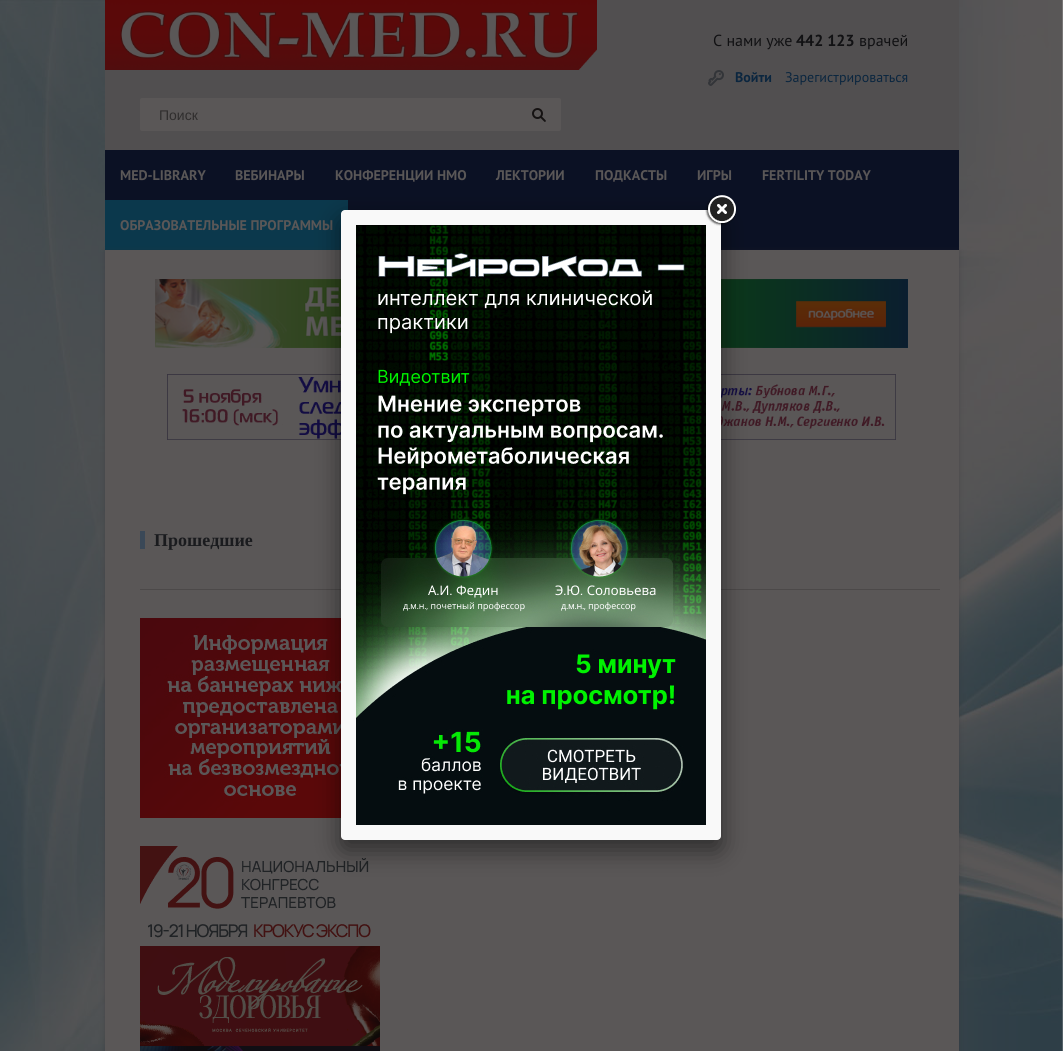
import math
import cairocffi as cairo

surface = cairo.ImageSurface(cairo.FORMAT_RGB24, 1063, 1051)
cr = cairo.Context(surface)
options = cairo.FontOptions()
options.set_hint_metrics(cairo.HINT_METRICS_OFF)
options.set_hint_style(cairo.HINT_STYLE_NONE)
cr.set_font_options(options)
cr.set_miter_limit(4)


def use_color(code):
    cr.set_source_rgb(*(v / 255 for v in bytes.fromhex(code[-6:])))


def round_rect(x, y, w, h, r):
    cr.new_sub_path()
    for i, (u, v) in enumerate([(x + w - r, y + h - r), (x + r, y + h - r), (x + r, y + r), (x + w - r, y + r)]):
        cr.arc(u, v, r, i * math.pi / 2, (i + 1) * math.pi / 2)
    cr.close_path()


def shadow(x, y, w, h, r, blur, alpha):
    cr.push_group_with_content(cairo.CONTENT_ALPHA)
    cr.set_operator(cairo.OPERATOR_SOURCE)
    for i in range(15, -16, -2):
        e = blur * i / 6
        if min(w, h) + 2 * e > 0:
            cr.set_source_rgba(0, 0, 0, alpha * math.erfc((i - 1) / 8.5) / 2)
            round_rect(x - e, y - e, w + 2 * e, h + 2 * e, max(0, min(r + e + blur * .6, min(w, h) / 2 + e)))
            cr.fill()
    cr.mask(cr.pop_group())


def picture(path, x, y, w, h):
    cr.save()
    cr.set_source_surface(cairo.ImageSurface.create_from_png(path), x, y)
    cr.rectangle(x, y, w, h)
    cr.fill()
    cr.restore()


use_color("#ffffff")
cr.paint()
picture("img1.png", 0, 0, 1063, 1051)
use_color("#514f50")
cr.rectangle(105, 0, 854, 150)
cr.fill()
cr.select_font_face("PT Sans")
cr.set_font_size(16)
use_color("#111113")
cr.move_to(713, 46)
cr.show_text("С нами уже")
cr.select_font_face("PT Sans", cairo.FONT_SLANT_NORMAL, cairo.FONT_WEIGHT_BOLD)
cr.move_to(796, 46)
cr.show_text("442 123")
cr.select_font_face("PT Sans")
cr.move_to(859, 46)
cr.show_text("врачей")
picture("img2.png", 708, 70, 16, 16)
cr.select_font_face("PT Sans", cairo.FONT_SLANT_NORMAL, cairo.FONT_WEIGHT_BOLD)
cr.set_font_size(14)
use_color("#0b263f")
cr.move_to(735, 82)
cr.show_text("Войти")
cr.select_font_face("PT Sans")
cr.move_to(785, 82)
cr.show_text("Зарегистрироваться")
picture("img3.png", 105, 0, 492, 70)
use_color("#5a5757")
round_rect(140, 98, 421, 33, 2)
cr.fill()
cr.select_font_face("Liberation Sans")
use_color("#2f2d2d")
cr.move_to(159, 120)
cr.show_text("Поиск")
picture("img4.png", 532, 108, 14, 14)
use_color("#0b1124")
cr.rectangle(105, 150, 854, 100)
cr.fill()
cr.select_font_face("PT Sans", cairo.FONT_SLANT_NORMAL, cairo.FONT_WEIGHT_BOLD)
use_color("#5a5757")
cr.move_to(120, 180)
cr.show_text("MED-LIBRARY")
cr.move_to(235, 180)
cr.show_text("ВЕБИНАРЫ")
cr.move_to(335, 180)
cr.show_text("КОНФЕРЕНЦИИ НМО")
cr.move_to(496, 180)
cr.show_text("ЛЕКТОРИИ")
cr.move_to(595, 180)
cr.show_text("ПОДКАСТЫ")
cr.move_to(697, 180)
cr.show_text("ИГРЫ")
cr.move_to(762, 180)
cr.show_text("FERTILITY TODAY")
use_color("#0b384c")
cr.rectangle(105, 200, 243, 50)
cr.fill()
use_color("#5a5757")
cr.move_to(120, 230)
cr.show_text("ОБРАЗОВАТЕЛЬНЫЕ ПРОГРАММЫ")
use_color("#2b2a2c")
shadow(105, 251, 854, 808, 0, 2.5, 0.31)
use_color("#5a5757")
cr.rectangle(105, 250, 854, 801)
cr.fill()
picture("img5.png", 155, 279, 753, 69)
picture("img6.png", 167, 374, 729, 66)
use_color("#4c4949")
cr.rectangle(140, 589, 800, 1)
cr.fill()
use_color("#3a4857")
cr.rectangle(140, 531, 5, 18)
cr.fill()
cr.select_font_face("Liberation Serif", cairo.FONT_SLANT_NORMAL, cairo.FONT_WEIGHT_BOLD)
cr.set_font_size(18)
use_color("#1a1b1e")
cr.move_to(154, 546)
cr.show_text("Прошедшие")
picture("img7.png", 140, 618, 201, 200)
picture("img8.png", 140, 846, 231, 92)
picture("img9.png", 140, 946, 240, 100)
picture("img10.png", 140, 1046, 240, 5)
use_color("#000000")
shadow(341, 220, 380, 630, 4, 12.5, 0.5)
use_color("#f9f9f9")
round_rect(341, 210, 380, 630, 4)
cr.fill()
picture("img12.png", 356, 225, 350, 600)
picture("img11.png", 705, 195, 31, 31)
surface.write_to_png("result.png")
